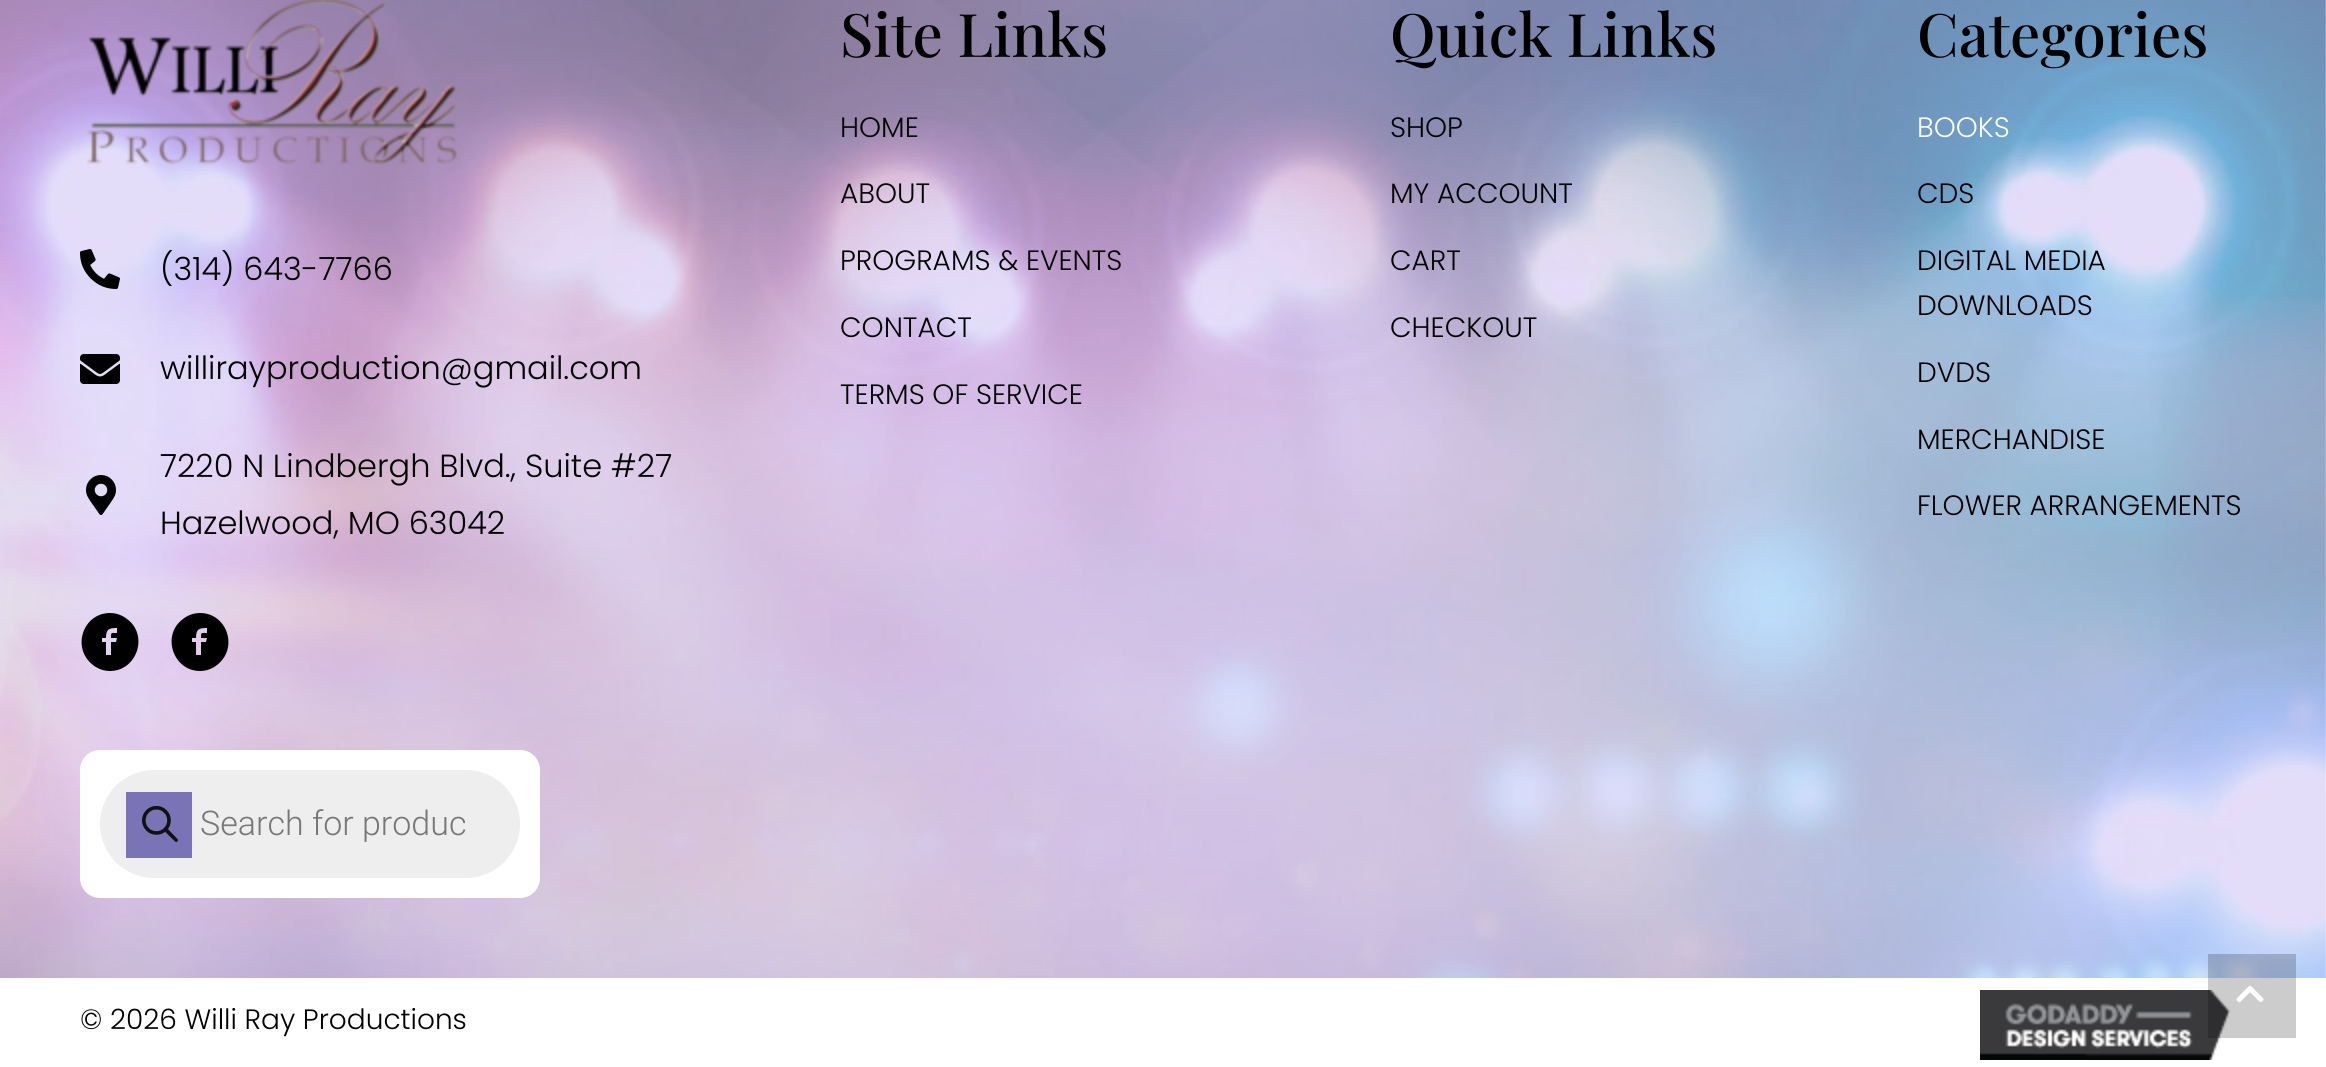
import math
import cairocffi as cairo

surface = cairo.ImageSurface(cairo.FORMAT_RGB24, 2326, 1067)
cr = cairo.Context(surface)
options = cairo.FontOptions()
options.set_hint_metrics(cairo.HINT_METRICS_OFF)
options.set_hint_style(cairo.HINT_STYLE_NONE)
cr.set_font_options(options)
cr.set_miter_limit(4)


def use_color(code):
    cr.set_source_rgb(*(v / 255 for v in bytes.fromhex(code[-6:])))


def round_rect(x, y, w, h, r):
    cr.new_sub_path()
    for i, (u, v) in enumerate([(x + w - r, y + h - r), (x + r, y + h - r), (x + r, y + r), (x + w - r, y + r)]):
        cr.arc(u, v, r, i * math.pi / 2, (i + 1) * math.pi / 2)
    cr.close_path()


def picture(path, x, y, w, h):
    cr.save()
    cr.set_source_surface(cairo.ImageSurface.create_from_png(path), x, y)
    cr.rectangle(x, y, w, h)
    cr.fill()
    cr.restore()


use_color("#ffffff")
cr.paint()
picture("img1.png", 0, 0, 2326, 978)
picture("img2.png", 86, 0, 372, 165)
picture("img3.png", 80, 249, 40, 40)
cr.select_font_face("Poppins Light")
cr.set_font_size(32)
use_color("#000000")
cr.move_to(160, 280)
cr.show_text("(314) 643-7766")
picture("img4.png", 80, 354, 40, 30)
cr.move_to(160, 379)
cr.show_text("willirayproduction@gmail.com")
picture("img5.png", 86, 475, 30, 40)
cr.move_to(160, 477)
cr.show_text("7220 N Lindbergh Blvd., Suite #27")
cr.move_to(160, 534)
cr.show_text("Hazelwood, MO 63042")
cr.new_path()
cr.move_to(110, 613)
cr.curve_to(83, 613, 71, 648, 93, 665)
cr.curve_to(98, 669, 104, 671, 110, 671)
cr.curve_to(137, 671, 149, 635, 127, 619)
cr.curve_to(122, 615, 116, 613, 110, 613)
cr.close_path()
cr.move_to(117, 633)
cr.curve_to(111, 633, 111, 632, 111, 638)
cr.line_to(117, 638)
cr.line_to(116, 642)
cr.line_to(111, 642)
cr.line_to(111, 655)
cr.line_to(106, 655)
cr.line_to(106, 642)
cr.line_to(102, 642)
cr.line_to(102, 638)
cr.line_to(106, 638)
cr.curve_to(106, 629, 109, 628, 117, 628)
cr.close_path()
cr.fill()
cr.new_path()
cr.move_to(200, 613)
cr.curve_to(194, 613, 188, 615, 183, 619)
cr.curve_to(161, 635, 173, 671, 200, 671)
cr.curve_to(206, 671, 212, 669, 217, 665)
cr.curve_to(239, 648, 227, 613, 200, 613)
cr.close_path()
cr.move_to(207, 633)
cr.curve_to(201, 633, 201, 632, 201, 638)
cr.line_to(207, 638)
cr.line_to(206, 642)
cr.line_to(201, 642)
cr.line_to(201, 655)
cr.line_to(196, 655)
cr.line_to(196, 642)
cr.line_to(192, 642)
cr.line_to(192, 638)
cr.line_to(196, 638)
cr.curve_to(196, 629, 199, 628, 207, 628)
cr.close_path()
cr.fill()
use_color("#ffffff")
round_rect(80, 750, 460, 148, 20)
cr.fill()
use_color("#eeeeee")
round_rect(100, 770, 420, 108, 54)
cr.fill()
use_color("#7a73b6")
cr.rectangle(126, 792, 66, 66)
cr.fill()
picture("img6.png", 142, 806, 36, 36)
cr.select_font_face("Roboto Light")
cr.set_font_size(34)
use_color("#777777")
cr.move_to(200, 835)
cr.show_text("Search for produc")
cr.select_font_face("Playfair Display Medium")
cr.set_font_size(60)
use_color("#000000")
cr.move_to(840, 57)
cr.show_text("Site Links")
cr.select_font_face("Poppins Light")
cr.set_font_size(28)
cr.move_to(840, 137)
cr.show_text("HOME")
cr.move_to(840, 203)
cr.show_text("ABOUT")
cr.move_to(840, 270)
cr.show_text("PROGRAMS & EVENTS")
cr.move_to(840, 337)
cr.show_text("CONTACT")
cr.move_to(840, 404)
cr.show_text("TERMS OF SERVICE")
cr.select_font_face("Playfair Display Medium")
cr.set_font_size(60)
cr.move_to(1390, 57)
cr.show_text("Quick Links")
cr.select_font_face("Poppins Light")
cr.set_font_size(28)
cr.move_to(1390, 137)
cr.show_text("SHOP")
cr.move_to(1390, 203)
cr.show_text("MY ACCOUNT")
cr.move_to(1390, 270)
cr.show_text("CART")
cr.move_to(1390, 337)
cr.show_text("CHECKOUT")
cr.select_font_face("Playfair Display Medium")
cr.set_font_size(60)
cr.move_to(1917, 57)
cr.show_text("Categories")
cr.select_font_face("Poppins Light")
cr.set_font_size(28)
use_color("#ffffff")
cr.move_to(1917, 137)
cr.show_text("BOOKS")
use_color("#000000")
cr.move_to(1917, 203)
cr.show_text("CDS")
cr.move_to(1917, 270)
cr.show_text("DIGITAL MEDIA")
cr.move_to(1917, 315)
cr.show_text("DOWNLOADS")
cr.move_to(1917, 382)
cr.show_text("DVDS")
cr.move_to(1917, 449)
cr.show_text("MERCHANDISE")
cr.move_to(1917, 515)
cr.show_text("FLOWER ARRANGEMENTS")
cr.move_to(80, 1029)
cr.show_text("© 2026 Willi Ray Productions")
picture("img7.png", 1980, 990, 251, 70)
cr.set_source_rgba(0, 0, 0, 0.2)
cr.rectangle(2208, 954, 88, 84)
cr.fill()
picture("img8.png", 2236, 985, 28, 18)
surface.write_to_png("result.png")
